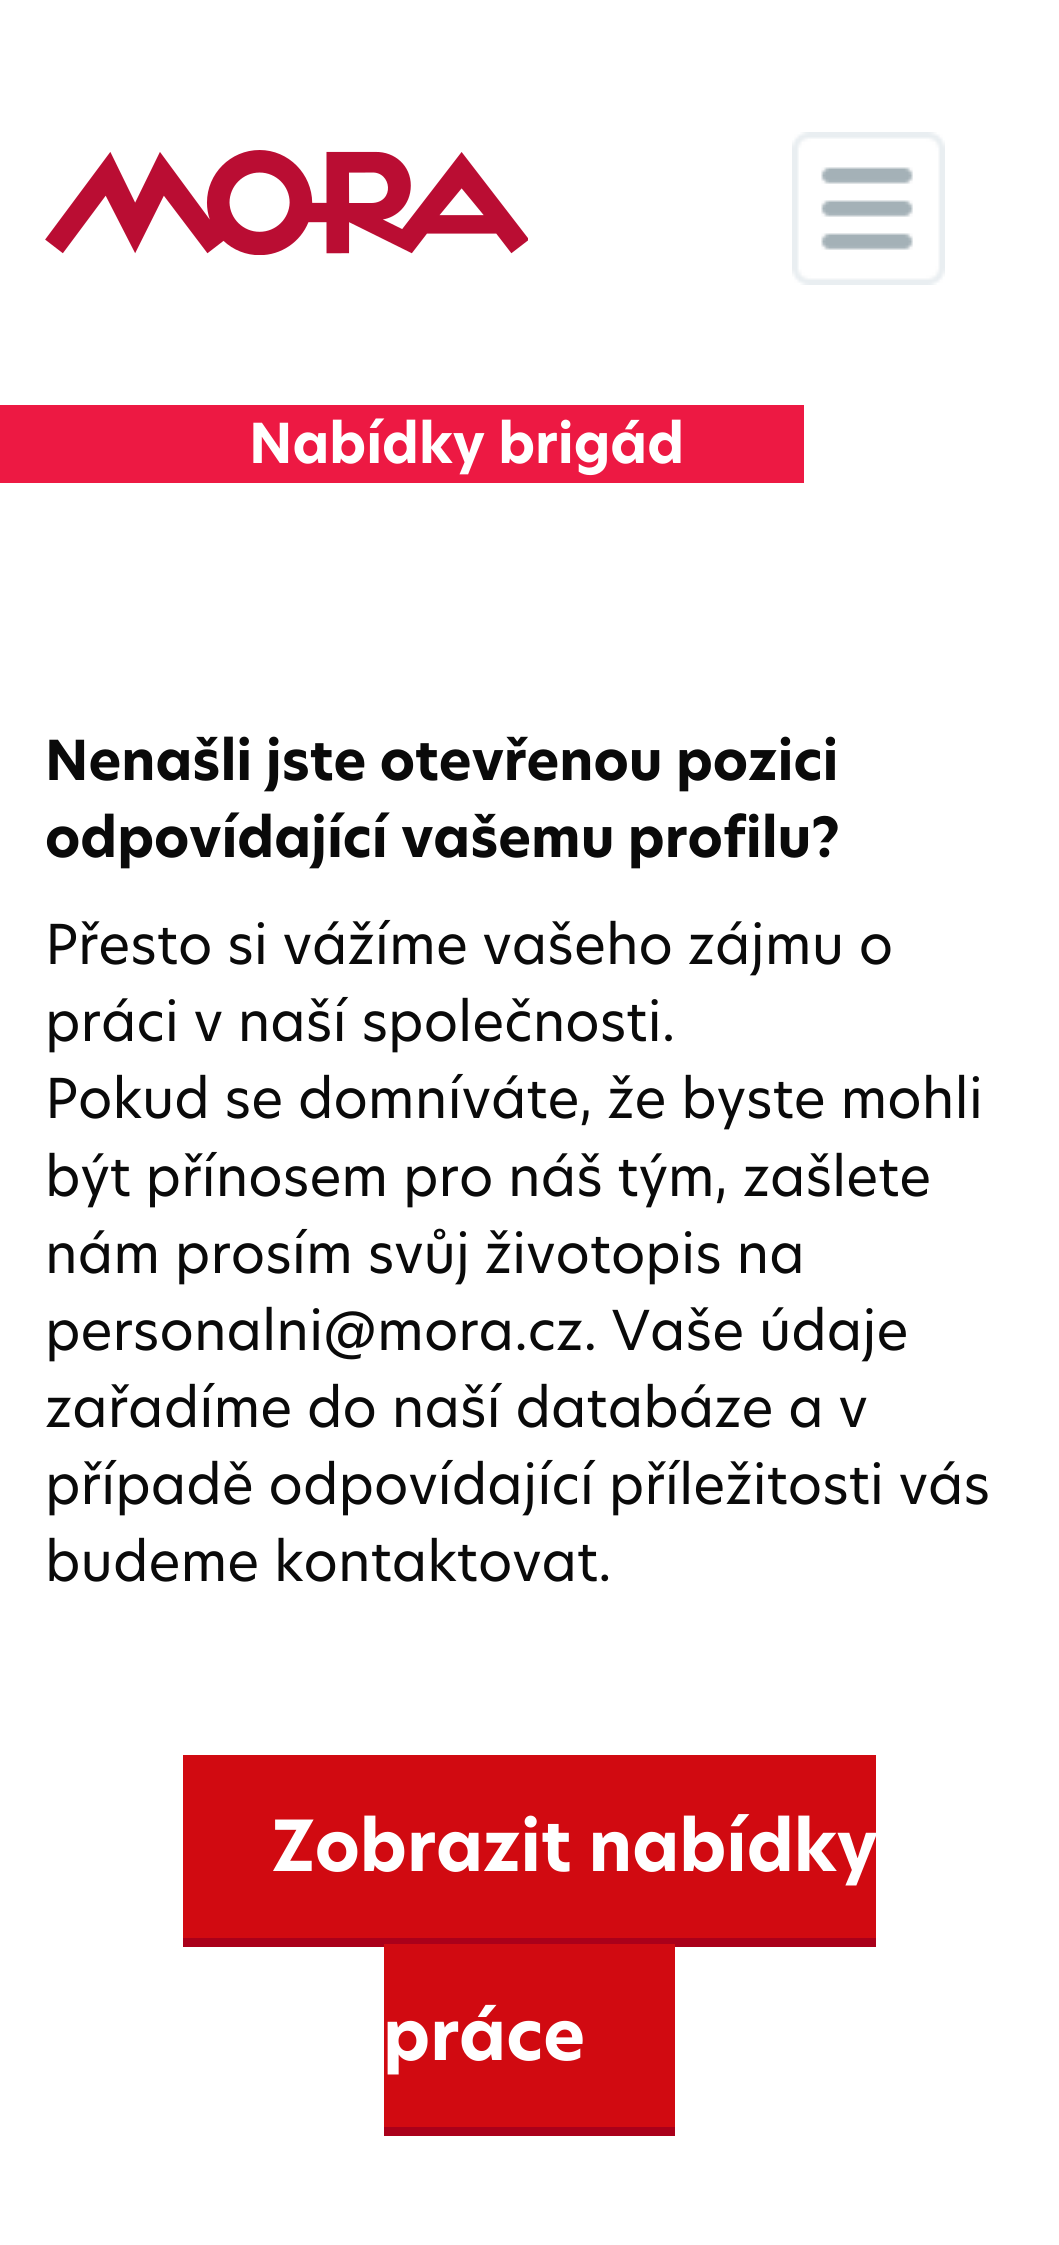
import math
import cairocffi as cairo

surface = cairo.ImageSurface(cairo.FORMAT_RGB24, 1059, 2245)
cr = cairo.Context(surface)
options = cairo.FontOptions()
options.set_hint_metrics(cairo.HINT_METRICS_OFF)
options.set_hint_style(cairo.HINT_STYLE_NONE)
cr.set_font_options(options)
cr.set_miter_limit(4)


def use_color(code):
    cr.set_source_rgb(*(v / 255 for v in bytes.fromhex(code[-6:])))


def picture(path, x, y, w, h):
    cr.save()
    cr.set_source_surface(cairo.ImageSurface.create_from_png(path), x, y)
    cr.rectangle(x, y, w, h)
    cr.fill()
    cr.restore()


use_color("#ffffff")
cr.paint()
picture("img1.png", 45, 150, 483, 105)
picture("img2.png", 792, 132, 153, 153)
use_color("#ed1943")
cr.rectangle(0, 405, 804, 78)
cr.fill()
cr.select_font_face("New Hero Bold", cairo.FONT_SLANT_NORMAL, cairo.FONT_WEIGHT_BOLD)
cr.set_font_size(54)
use_color("#ffffff")
cr.move_to(249, 463)
cr.show_text("Nabídky brigád")
use_color("#0a0a0a")
cr.move_to(45, 780)
cr.show_text("Nenašli jste otevřenou pozici")
cr.move_to(45, 857)
cr.show_text("odpovídající vašemu profilu?")
cr.select_font_face("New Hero")
cr.move_to(45, 964)
cr.show_text("Přesto si vážíme vašeho zájmu o")
cr.move_to(45, 1041)
cr.show_text("práci v naší společnosti.")
cr.move_to(45, 1118)
cr.show_text("Pokud se domníváte, že byste mohli")
cr.move_to(45, 1196)
cr.show_text("být přínosem pro náš tým, zašlete")
cr.move_to(45, 1273)
cr.show_text("nám prosím svůj životopis na")
cr.move_to(45, 1350)
cr.show_text("personalni@mora.cz. Vaše údaje")
cr.move_to(45, 1427)
cr.show_text("zařadíme do naší databáze a v")
cr.move_to(45, 1504)
cr.show_text("případě odpovídající příležitosti vás")
cr.move_to(45, 1581)
cr.show_text("budeme kontaktovat.")
use_color("#d10a11")
cr.rectangle(183, 1755, 693, 183)
cr.fill()
cr.select_font_face("New Hero Bold", cairo.FONT_SLANT_NORMAL, cairo.FONT_WEIGHT_BOLD)
cr.set_font_size(69)
use_color("#ffffff")
cr.move_to(272, 1871)
cr.show_text("Zobrazit nabídky")
use_color("#aa001a")
cr.rectangle(183, 1938, 693, 9)
cr.fill()
use_color("#d10a11")
cr.rectangle(384, 1944, 291, 183)
cr.fill()
use_color("#ffffff")
cr.move_to(383, 2060)
cr.show_text("práce")
use_color("#aa001a")
cr.rectangle(384, 2127, 291, 9)
cr.fill()
surface.write_to_png("result.png")
